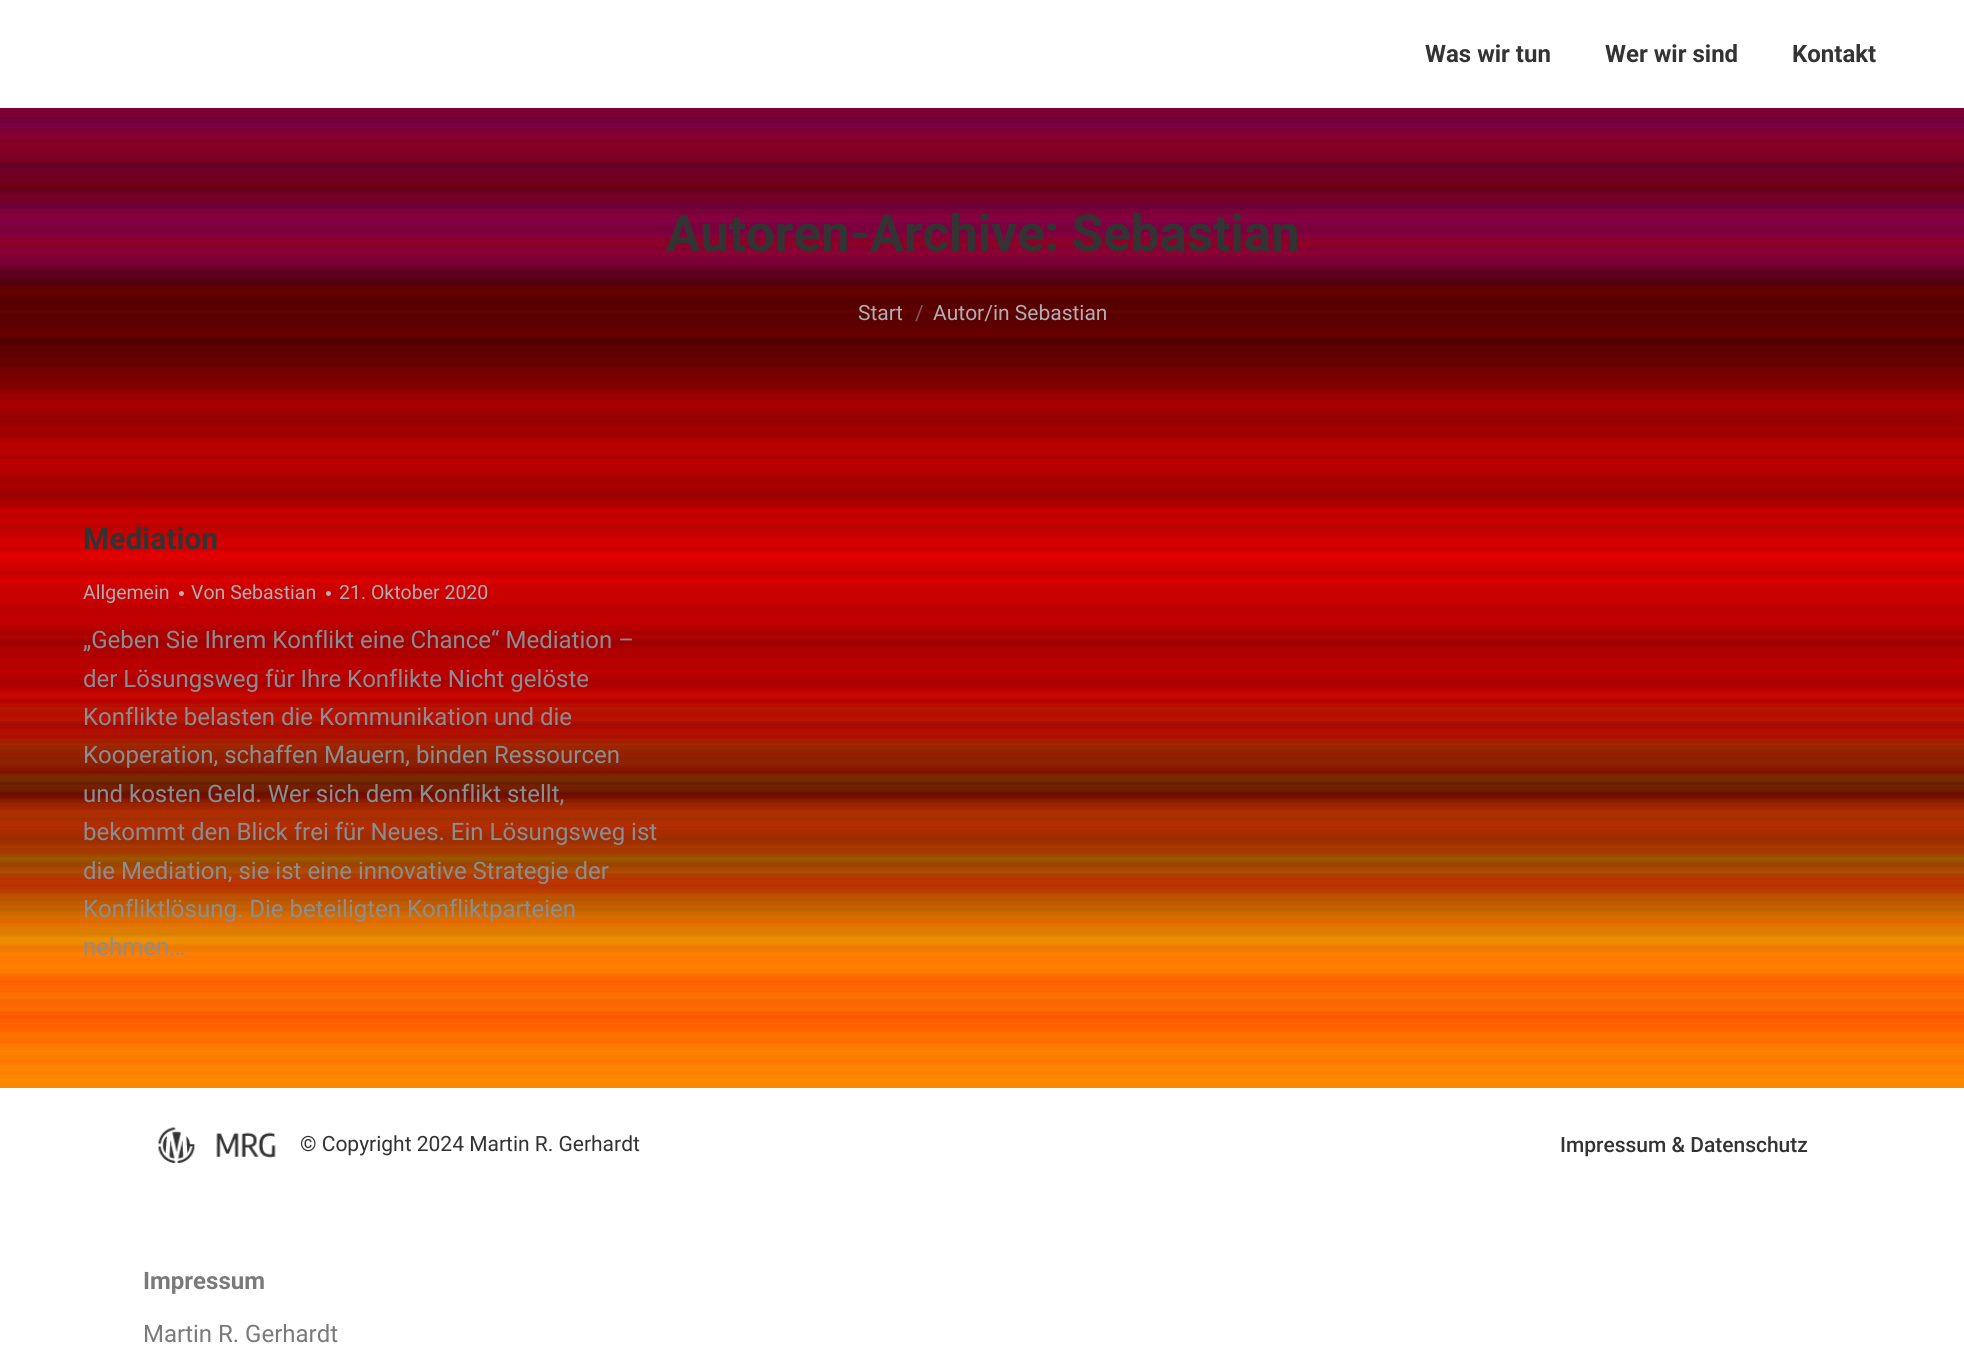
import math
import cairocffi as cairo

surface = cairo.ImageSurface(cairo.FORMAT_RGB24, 1964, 1372)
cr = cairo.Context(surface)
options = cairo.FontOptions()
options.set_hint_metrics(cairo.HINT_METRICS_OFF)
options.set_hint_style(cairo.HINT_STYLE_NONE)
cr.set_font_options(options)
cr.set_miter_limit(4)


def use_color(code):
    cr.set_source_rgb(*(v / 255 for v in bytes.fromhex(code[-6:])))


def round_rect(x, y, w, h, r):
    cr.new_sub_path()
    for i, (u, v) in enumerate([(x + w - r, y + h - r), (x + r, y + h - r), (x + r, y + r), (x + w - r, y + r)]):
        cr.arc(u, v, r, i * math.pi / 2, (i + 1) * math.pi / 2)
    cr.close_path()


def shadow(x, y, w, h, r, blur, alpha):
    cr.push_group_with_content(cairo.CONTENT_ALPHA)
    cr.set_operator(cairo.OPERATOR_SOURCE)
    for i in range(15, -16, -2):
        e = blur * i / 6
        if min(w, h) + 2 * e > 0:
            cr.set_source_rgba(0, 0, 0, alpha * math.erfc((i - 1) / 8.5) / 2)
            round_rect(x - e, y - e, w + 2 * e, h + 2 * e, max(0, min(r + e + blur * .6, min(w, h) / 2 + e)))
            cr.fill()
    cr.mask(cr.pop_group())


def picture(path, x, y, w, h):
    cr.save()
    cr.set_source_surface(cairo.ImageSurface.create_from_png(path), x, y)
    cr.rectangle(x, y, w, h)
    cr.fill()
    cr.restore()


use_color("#ffffff")
cr.paint()
picture("img1.png", 0, 108, 1964, 980)
cr.set_source_rgba(0, 0, 0, 0.04)
cr.rectangle(0, 108, 1964, 300)
cr.fill()
use_color("#000000")
shadow(-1, -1, 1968, 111, 0, 11, 0.07)
use_color("#ffffff")
cr.rectangle(0, 0, 1964, 108)
cr.fill()
cr.select_font_face("Roboto", cairo.FONT_SLANT_NORMAL, cairo.FONT_WEIGHT_BOLD)
cr.set_font_size(24)
use_color("#333333")
cr.move_to(1425, 62)
cr.show_text("Was wir tun")
cr.move_to(1605, 62)
cr.show_text("Wer wir sind")
cr.move_to(1792, 62)
cr.show_text("Kontakt")
cr.set_font_size(51)
cr.move_to(666, 251)
cr.show_text("Autoren-Archive: Sebastian")
cr.select_font_face("Roboto")
cr.set_font_size(21)
use_color("#adafb3")
cr.move_to(858, 320)
cr.show_text("Start")
use_color("#84585a")
cr.move_to(915, 320)
cr.show_text("/")
use_color("#adafb3")
cr.move_to(933, 320)
cr.show_text("Autor/in Sebastian")
cr.select_font_face("Roboto", cairo.FONT_SLANT_NORMAL, cairo.FONT_WEIGHT_BOLD)
cr.set_font_size(30)
use_color("#333333")
cr.move_to(83, 549)
cr.show_text("Mediation")
cr.select_font_face("Roboto")
cr.set_font_size(19.5)
use_color("#adafb3")
cr.move_to(83, 599)
cr.show_text("Allgemein")
cr.new_path()
cr.arc(181.5, 593.5, 2.5, 0, 2 * math.pi)
cr.fill()
cr.move_to(191, 599)
cr.show_text("Von Sebastian")
cr.new_path()
cr.arc(328.5, 593.5, 2.5, 0, 2 * math.pi)
cr.fill()
cr.move_to(339, 599)
cr.show_text("21. Oktober 2020")
cr.set_font_size(24)
use_color("#8b8d94")
cr.move_to(83, 648)
cr.show_text("„Geben Sie Ihrem Konflikt eine Chance“ Mediation –")
cr.move_to(83, 687)
cr.show_text("der Lösungsweg für Ihre Konflikte Nicht gelöste")
cr.move_to(83, 725)
cr.show_text("Konflikte belasten die Kommunikation und die")
cr.move_to(83, 763)
cr.show_text("Kooperation, schaffen Mauern, binden Ressourcen")
cr.move_to(83, 802)
cr.show_text("und kosten Geld. Wer sich dem Konflikt stellt,")
cr.move_to(83, 840)
cr.show_text("bekommt den Blick frei für Neues. Ein Lösungsweg ist")
cr.move_to(83, 879)
cr.show_text("die Mediation, sie ist eine innovative Strategie der")
cr.move_to(83, 917)
cr.show_text("Konfliktlösung. Die beteiligten Konfliktparteien")
cr.move_to(83, 955)
cr.show_text("nehmen…")
picture("img2.png", 158, 1127, 118, 36)
cr.set_font_size(21)
use_color("#333333")
cr.move_to(300, 1151)
cr.show_text("© Copyright 2024 Martin R. Gerhardt")
cr.select_font_face("Roboto Medium")
cr.move_to(1560, 1152)
cr.show_text("Impressum & Datenschutz")
cr.select_font_face("Roboto", cairo.FONT_SLANT_NORMAL, cairo.FONT_WEIGHT_BOLD)
cr.set_font_size(24)
use_color("#7a7a7a")
cr.move_to(143, 1289)
cr.show_text("Impressum")
cr.select_font_face("Roboto")
cr.move_to(143, 1342)
cr.show_text("Martin R. Gerhardt")
surface.write_to_png("result.png")
